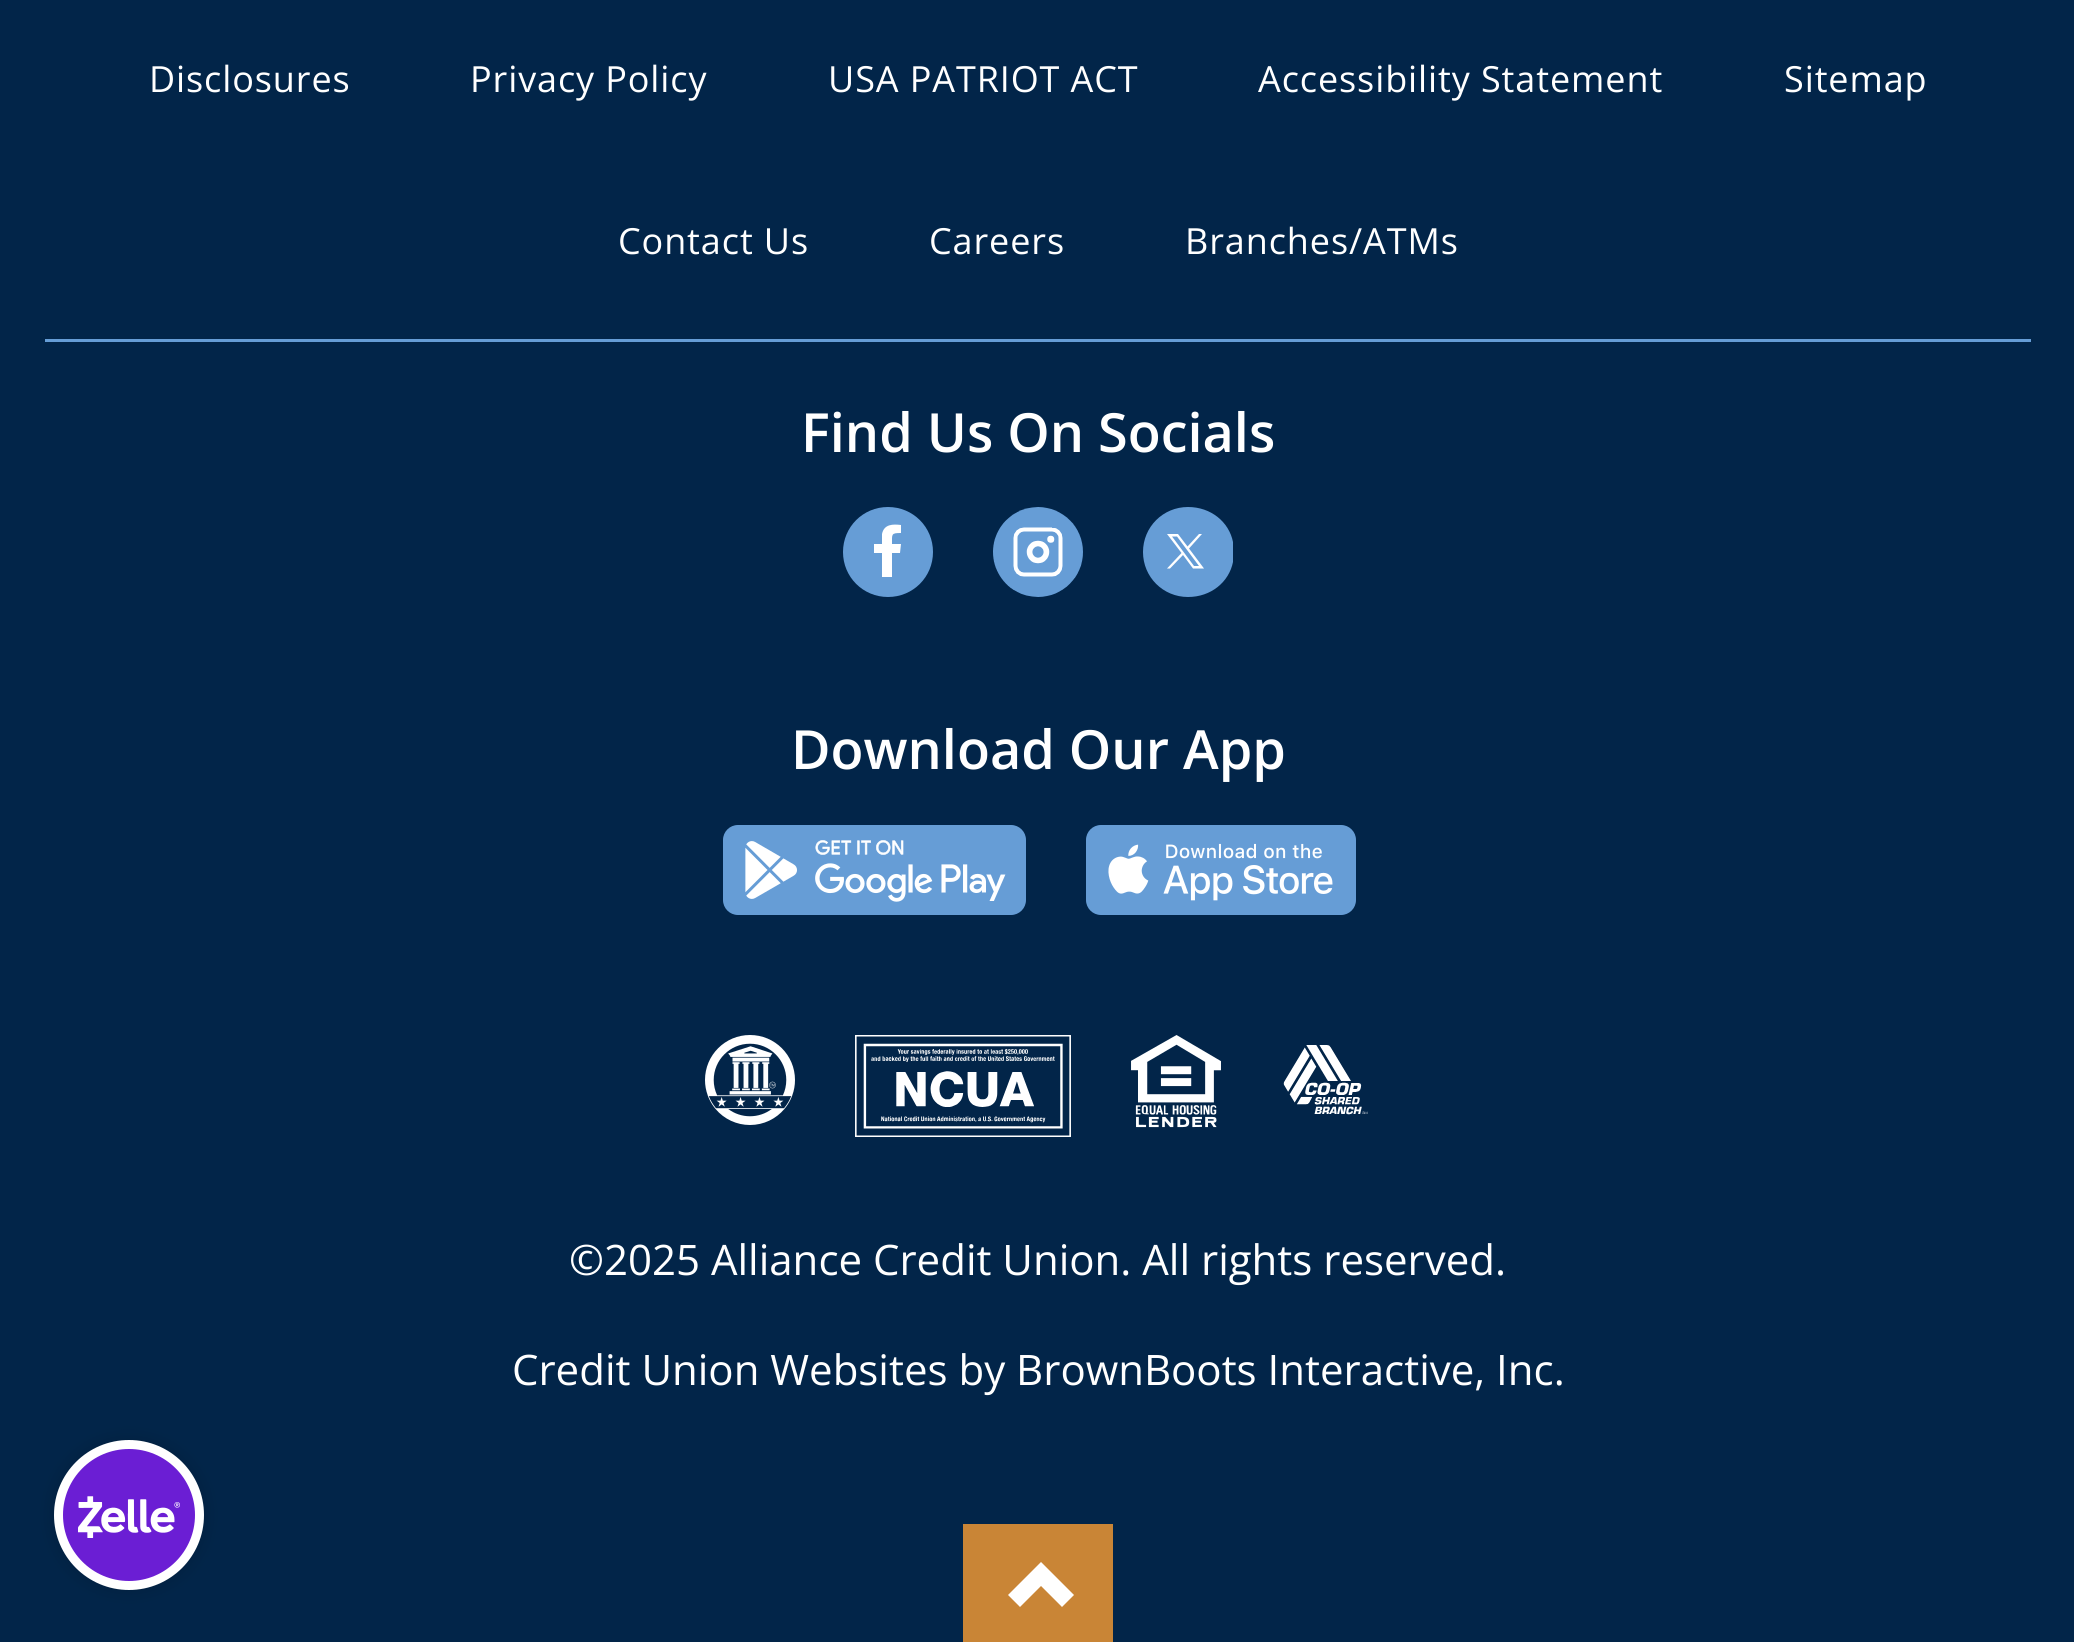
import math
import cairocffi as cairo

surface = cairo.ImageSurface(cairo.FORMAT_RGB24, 2074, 1642)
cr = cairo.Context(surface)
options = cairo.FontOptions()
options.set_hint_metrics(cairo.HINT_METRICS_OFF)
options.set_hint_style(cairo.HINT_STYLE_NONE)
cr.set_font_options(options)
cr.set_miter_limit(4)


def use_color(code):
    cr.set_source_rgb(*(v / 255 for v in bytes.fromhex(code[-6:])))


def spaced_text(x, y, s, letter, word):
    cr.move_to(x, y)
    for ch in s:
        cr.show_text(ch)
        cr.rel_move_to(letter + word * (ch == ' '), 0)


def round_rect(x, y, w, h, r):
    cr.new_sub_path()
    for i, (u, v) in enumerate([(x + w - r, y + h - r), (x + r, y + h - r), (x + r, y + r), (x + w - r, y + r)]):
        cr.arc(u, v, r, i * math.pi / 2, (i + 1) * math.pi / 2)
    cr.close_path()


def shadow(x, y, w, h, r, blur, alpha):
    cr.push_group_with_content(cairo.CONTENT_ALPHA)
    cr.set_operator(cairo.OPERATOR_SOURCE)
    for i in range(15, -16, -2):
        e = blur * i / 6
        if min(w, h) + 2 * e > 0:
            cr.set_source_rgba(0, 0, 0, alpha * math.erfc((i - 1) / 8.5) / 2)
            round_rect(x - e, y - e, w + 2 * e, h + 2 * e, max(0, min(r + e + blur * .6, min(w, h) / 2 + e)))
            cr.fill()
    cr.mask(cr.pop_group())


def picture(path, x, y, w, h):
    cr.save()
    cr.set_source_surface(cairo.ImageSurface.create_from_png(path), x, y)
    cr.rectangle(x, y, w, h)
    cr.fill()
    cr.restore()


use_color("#022549")
cr.paint()
use_color("#669dd6")
cr.rectangle(45, 339, 1986, 3)
cr.fill()
cr.select_font_face("Open Sans")
cr.set_font_size(36)
use_color("#ffffff")
spaced_text(149, 92, "Disclosures", 0.9, 0)
spaced_text(470, 92, "Privacy Policy", 0.9, 0)
spaced_text(828, 92, "USA PATRIOT ACT", 0.9, 0)
spaced_text(1258, 92, "Accessibility Statement", 0.9, 0)
spaced_text(1784, 92, "Sitemap", 0.9, 0)
spaced_text(618, 254, "Contact Us", 0.9, 0)
spaced_text(929, 254, "Careers", 0.9, 0)
spaced_text(1185, 254, "Branches/ATMs", 0.9, 0)
cr.select_font_face("Open Sans SemiBold")
cr.set_font_size(54)
cr.move_to(801, 452)
cr.show_text("Find Us On Socials")
use_color("#669dd6")
cr.new_path()
cr.move_to(933, 552)
cr.curve_to(933, 527, 913, 507, 888, 507)
cr.curve_to(863, 507, 843, 527, 843, 552)
cr.curve_to(843, 577, 863, 597, 888, 597)
cr.curve_to(913, 597, 933, 577, 933, 552)
cr.close_path()
cr.fill()
use_color("#ffffff")
cr.new_path()
cr.move_to(892, 577)
cr.line_to(892, 553)
cr.line_to(900, 553)
cr.line_to(901, 544)
cr.line_to(892, 544)
cr.curve_to(892, 534, 891, 533, 901, 533)
cr.line_to(901, 525)
cr.curve_to(893, 524, 884, 524, 882, 534)
cr.line_to(882, 544)
cr.line_to(874, 544)
cr.line_to(874, 553)
cr.line_to(882, 553)
cr.line_to(882, 577)
cr.close_path()
cr.fill()
picture("img1.png", 993, 507, 90, 90)
use_color("#669dd6")
cr.new_path()
cr.move_to(1188, 597)
cr.curve_to(1163, 597, 1143, 577, 1143, 552)
cr.curve_to(1143, 527, 1163, 507, 1188, 507)
cr.curve_to(1211, 507, 1229, 522, 1233, 542)
cr.line_to(1233, 562)
cr.curve_to(1229, 582, 1211, 597, 1188, 597)
cr.close_path()
cr.fill()
use_color("#ffffff")
cr.new_path()
cr.move_to(1167, 534)
cr.line_to(1181.5, 553)
cr.line_to(1167, 568.5)
cr.line_to(1170, 568.5)
cr.line_to(1183, 555)
cr.line_to(1193, 568.5)
cr.line_to(1204, 568.5)
cr.line_to(1189, 548.5)
cr.line_to(1202, 534)
cr.line_to(1199, 534)
cr.line_to(1187.5, 546.5)
cr.line_to(1178, 534)
cr.close_path()
cr.move_to(1172, 536.5)
cr.line_to(1177, 536.5)
cr.line_to(1199, 566)
cr.line_to(1194, 566)
cr.close_path()
cr.fill()
cr.move_to(791, 769)
cr.show_text("Download Our App")
picture("img2.png", 723, 825, 303, 90)
picture("img3.png", 1086, 825, 270, 90)
picture("img4.png", 705, 1035, 90, 90)
picture("img5.png", 855, 1035, 216, 102)
picture("img6.png", 1131, 1035, 90, 93)
picture("img7.png", 1283, 1045, 85, 70)
cr.select_font_face("Open Sans")
cr.set_font_size(42)
cr.move_to(569, 1275)
cr.show_text("©2025 Alliance Credit Union. All rights reserved.")
cr.move_to(512, 1385)
cr.show_text("Credit Union Websites by BrownBoots Interactive, Inc.")
use_color("#000000")
shadow(54, 1440, 150, 150, 75, 9, 0.16)
use_color("#6b1ed4")
cr.arc(129, 1515, 70.5, 0, 2 * math.pi)
cr.fill_preserve()
use_color("#ffffff")
cr.set_line_width(9)
cr.stroke()
picture("img8.png", 78, 1496, 102, 42)
use_color("#c98536")
cr.rectangle(963, 1524, 150, 118)
cr.fill()
use_color("#ffffff")
cr.new_path()
cr.move_to(1074, 1595)
cr.line_to(1062, 1607)
cr.line_to(1041, 1586)
cr.line_to(1020, 1607)
cr.line_to(1008, 1595)
cr.line_to(1041, 1562)
cr.close_path()
cr.fill()
surface.write_to_png("result.png")
